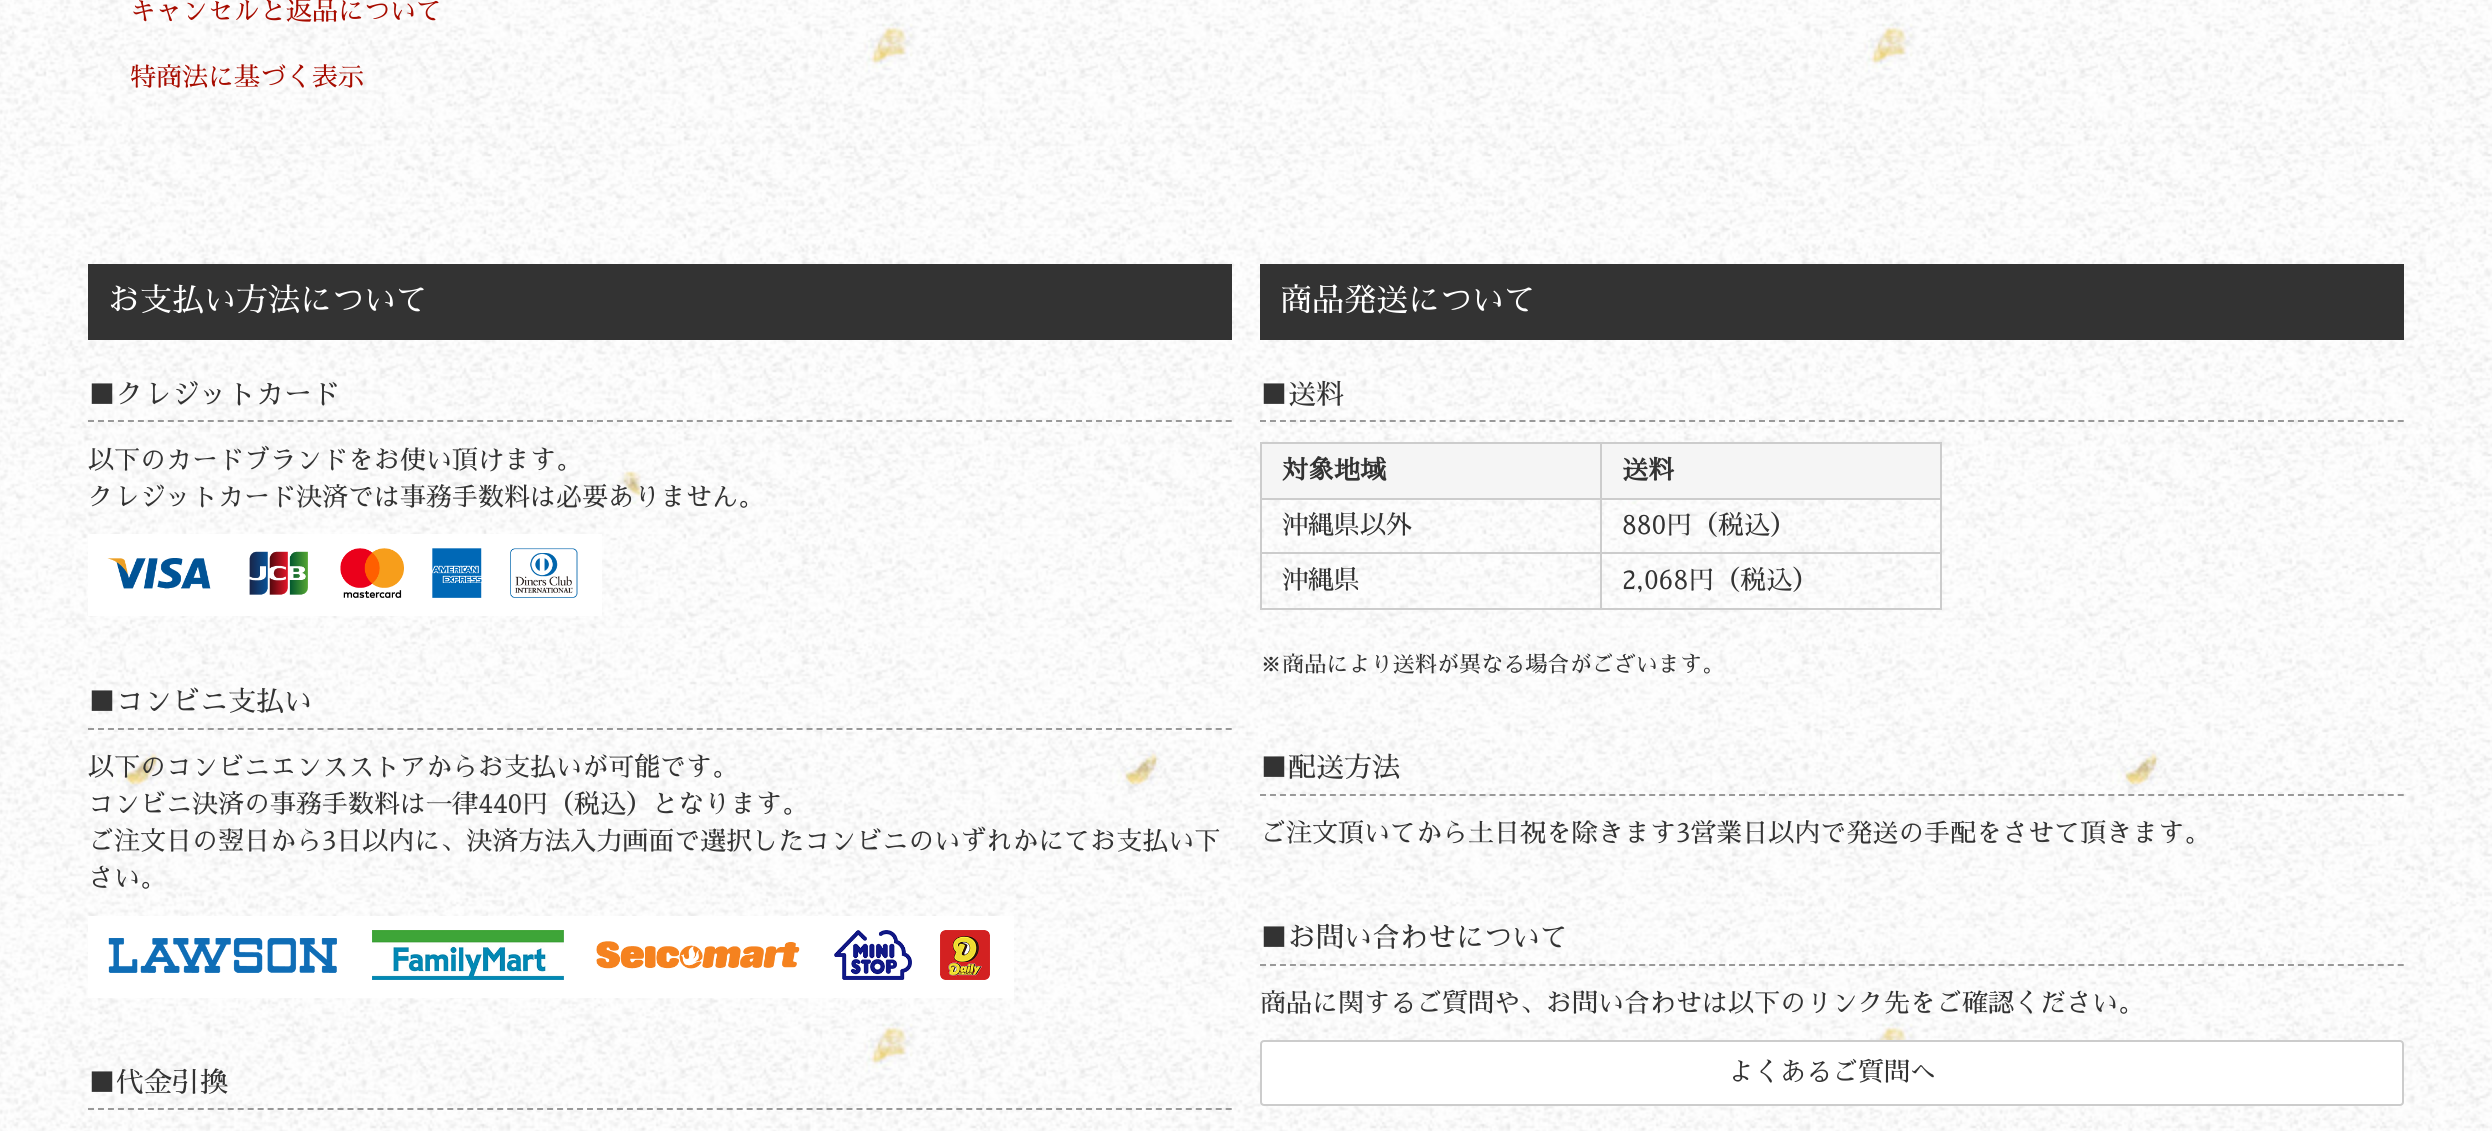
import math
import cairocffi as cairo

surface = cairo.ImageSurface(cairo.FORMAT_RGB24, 2492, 1131)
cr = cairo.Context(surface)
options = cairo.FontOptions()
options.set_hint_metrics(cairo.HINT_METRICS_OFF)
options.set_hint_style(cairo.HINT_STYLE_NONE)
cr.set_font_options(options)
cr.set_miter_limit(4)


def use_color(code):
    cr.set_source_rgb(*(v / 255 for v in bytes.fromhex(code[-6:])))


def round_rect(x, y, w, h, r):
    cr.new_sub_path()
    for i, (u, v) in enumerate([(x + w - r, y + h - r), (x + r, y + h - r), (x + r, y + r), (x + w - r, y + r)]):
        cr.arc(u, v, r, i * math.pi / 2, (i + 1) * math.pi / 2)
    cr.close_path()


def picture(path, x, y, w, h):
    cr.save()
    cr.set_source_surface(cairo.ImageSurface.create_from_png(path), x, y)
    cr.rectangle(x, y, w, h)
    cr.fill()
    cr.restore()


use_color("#ffffff")
cr.paint()
picture("img1.png", 0, 0, 2492, 1131)
cr.select_font_face("Sawarabi Mincho")
cr.set_font_size(26)
use_color("#a70c00")
cr.move_to(130, 20)
cr.show_text("キャンセルと返品について")
cr.move_to(130, 86)
cr.show_text("特商法に基づく表示")
use_color("#333333")
cr.rectangle(88, 264, 1144, 76)
cr.fill()
cr.set_font_size(32)
use_color("#ffffff")
cr.move_to(108, 311)
cr.show_text("お支払い方法について")
cr.new_path()
cr.move_to(88, 421)
cr.line_to(1232, 421)
use_color("#999999")
cr.set_dash([6, 3.98])
cr.stroke()
cr.set_font_size(28)
use_color("#333333")
cr.move_to(88, 404)
cr.show_text("■クレジットカード")
cr.set_font_size(26)
cr.move_to(88, 469)
cr.show_text("以下のカードブランドをお使い頂けます。")
cr.move_to(88, 506)
cr.show_text("クレジットカード決済では事務手数料は必要ありません。")
use_color("#ffffff")
cr.rectangle(88, 534, 514, 82)
cr.fill()
picture("img2.png", 107, 558, 104, 31)
picture("img3.png", 249, 551, 59, 44)
picture("img4.png", 340, 548, 64, 50)
picture("img5.png", 432, 548, 50, 50)
picture("img6.png", 510, 548, 68, 50)
cr.new_path()
cr.move_to(88, 729)
cr.line_to(1232, 729)
use_color("#999999")
cr.stroke()
cr.set_font_size(28)
use_color("#333333")
cr.move_to(88, 711)
cr.show_text("■コンビニ支払い")
cr.set_font_size(26)
cr.move_to(88, 776)
cr.show_text("以下のコンビニエンスストアからお支払いが可能です。")
cr.move_to(88, 813)
cr.show_text("コンビニ決済の事務手数料は一律440円（税込）となります。")
cr.move_to(88, 850)
cr.show_text("ご注文日の翌日から3日以内に、決済方法入力画面で選択したコンビニのいずれかにてお支払い下")
cr.move_to(88, 887)
cr.show_text("さい。")
use_color("#ffffff")
cr.rectangle(88, 916, 926, 82)
cr.fill()
picture("img7.png", 108, 938, 229, 35)
picture("img8.png", 372, 930, 192, 50)
picture("img9.png", 596, 941, 204, 28)
picture("img10.png", 834, 930, 78, 50)
picture("img11.png", 940, 930, 50, 50)
cr.new_path()
cr.move_to(88, 1109)
cr.line_to(1232, 1109)
use_color("#999999")
cr.stroke()
cr.set_font_size(28)
use_color("#333333")
cr.move_to(88, 1092)
cr.show_text("■代金引換")
cr.rectangle(1260, 264, 1144, 76)
cr.fill()
cr.set_font_size(32)
use_color("#ffffff")
cr.move_to(1280, 311)
cr.show_text("商品発送について")
cr.new_path()
cr.move_to(1260, 421)
cr.line_to(2404, 421)
use_color("#999999")
cr.stroke()
cr.set_font_size(28)
use_color("#333333")
cr.move_to(1260, 404)
cr.show_text("■送料")
use_color("#cccccc")
cr.rectangle(1260, 442, 682, 2)
cr.fill()
cr.rectangle(1940, 442, 2, 168)
cr.fill()
cr.rectangle(1260, 608, 682, 2)
cr.fill()
cr.rectangle(1260, 442, 2, 168)
cr.fill()
use_color("#f5f5f5")
cr.rectangle(1262, 444, 338, 54)
cr.fill()
cr.select_font_face("Sawarabi Mincho", cairo.FONT_SLANT_NORMAL, cairo.FONT_WEIGHT_BOLD)
cr.set_font_size(26)
use_color("#333333")
cr.move_to(1282, 479)
cr.show_text("対象地域")
use_color("#f5f5f5")
cr.rectangle(1602, 444, 338, 54)
cr.fill()
use_color("#cccccc")
cr.rectangle(1600, 498, 342, 2)
cr.fill()
cr.rectangle(1600, 552, 342, 2)
cr.fill()
cr.rectangle(1600, 552, 2, 58)
cr.fill()
cr.rectangle(1260, 552, 342, 2)
cr.fill()
cr.rectangle(1600, 498, 2, 56)
cr.fill()
cr.rectangle(1260, 498, 342, 2)
cr.fill()
cr.rectangle(1600, 442, 2, 58)
cr.fill()
use_color("#333333")
cr.move_to(1622, 479)
cr.show_text("送料")
cr.select_font_face("Sawarabi Mincho")
cr.move_to(1282, 534)
cr.show_text("沖縄県以外")
cr.move_to(1622, 534)
cr.show_text("880円（税込）")
cr.move_to(1282, 589)
cr.show_text("沖縄県")
cr.move_to(1622, 589)
cr.show_text("2,068円（税込）")
cr.set_font_size(22.1)
cr.move_to(1260, 672)
cr.show_text("※商品により送料が異なる場合がございます。")
cr.new_path()
cr.move_to(1260, 795)
cr.line_to(2404, 795)
use_color("#999999")
cr.stroke()
cr.set_font_size(28)
use_color("#333333")
cr.move_to(1260, 777)
cr.show_text("■配送方法")
cr.set_font_size(26)
cr.move_to(1260, 842)
cr.show_text("ご注文頂いてから土日祝を除きます3営業日以内で発送の手配をさせて頂きます。")
cr.new_path()
cr.move_to(1260, 965)
cr.line_to(2404, 965)
use_color("#999999")
cr.stroke()
cr.set_font_size(28)
use_color("#333333")
cr.move_to(1260, 947)
cr.show_text("■お問い合わせについて")
cr.set_font_size(26)
cr.move_to(1260, 1012)
cr.show_text("商品に関するご質問や、お問い合わせは以下のリンク先をご確認ください。")
use_color("#ffffff")
round_rect(1261, 1041, 1142, 64, 3)
cr.fill_preserve()
use_color("#cccccc")
cr.set_dash([])
cr.stroke()
use_color("#333333")
cr.move_to(1728, 1081)
cr.show_text("よくあるご質問へ")
surface.write_to_png("result.png")
